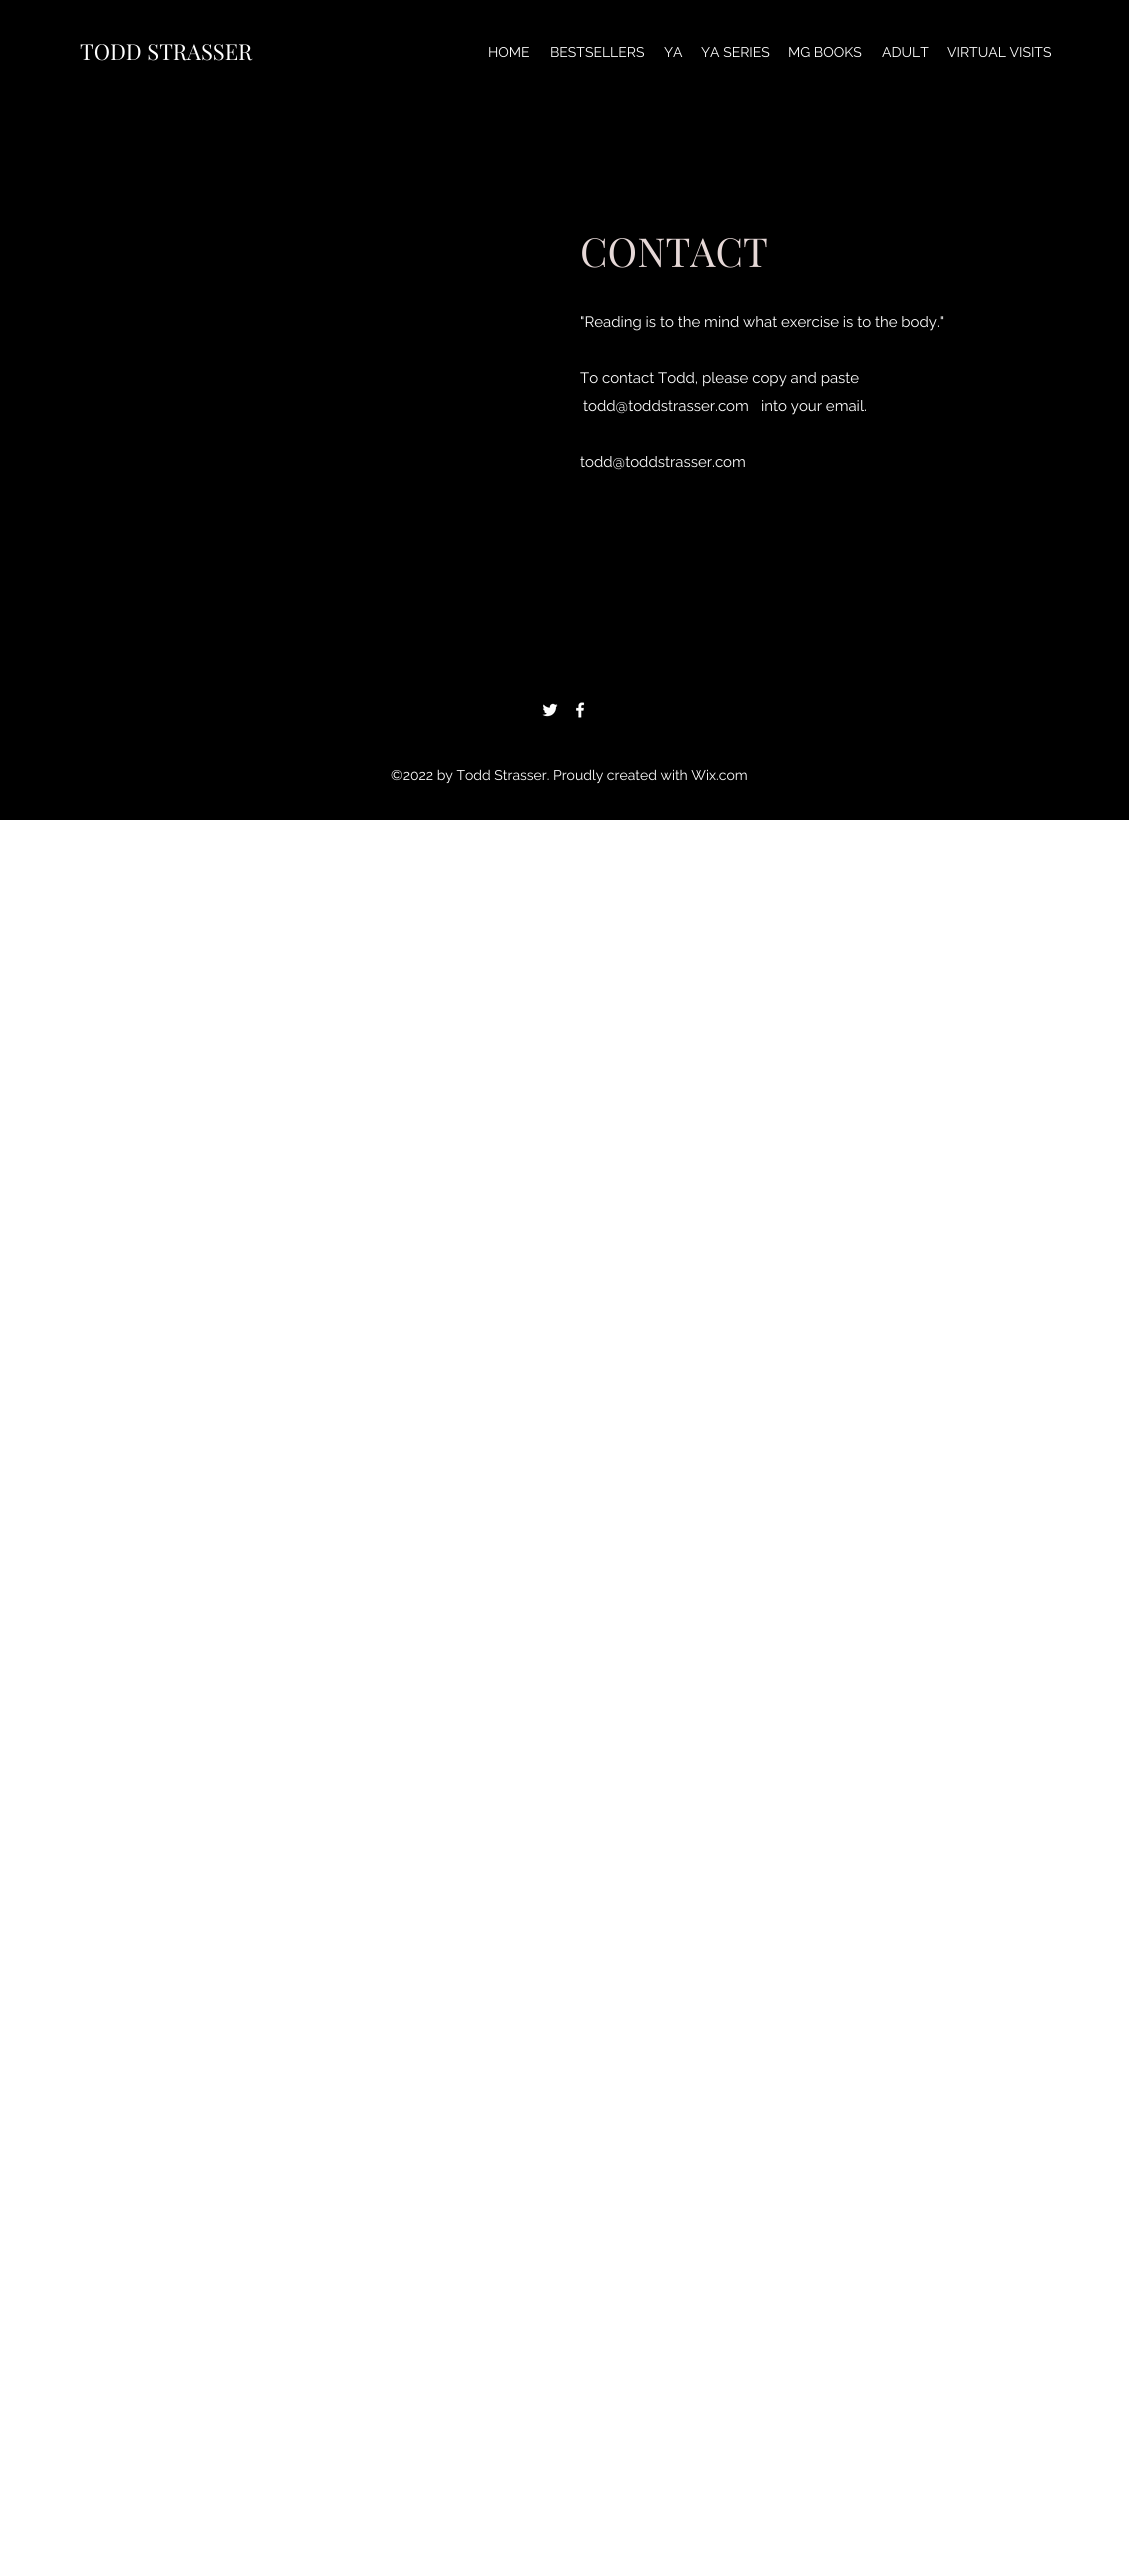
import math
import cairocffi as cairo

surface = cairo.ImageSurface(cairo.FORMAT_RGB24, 1129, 2572)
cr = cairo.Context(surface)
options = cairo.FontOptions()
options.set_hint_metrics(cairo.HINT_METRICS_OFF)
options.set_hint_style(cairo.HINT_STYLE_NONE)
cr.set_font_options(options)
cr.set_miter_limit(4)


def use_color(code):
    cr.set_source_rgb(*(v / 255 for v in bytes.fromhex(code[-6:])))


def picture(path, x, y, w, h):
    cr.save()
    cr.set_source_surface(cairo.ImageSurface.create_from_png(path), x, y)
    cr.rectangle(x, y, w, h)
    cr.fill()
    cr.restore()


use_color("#ffffff")
cr.paint()
use_color("#000000")
cr.rectangle(0, 0, 1129, 820)
cr.fill()
cr.select_font_face("Playfair Display")
cr.set_font_size(22)
use_color("#ffffff")
cr.move_to(80, 60)
cr.show_text("TODD STRASSER")
cr.select_font_face("Raleway")
cr.set_font_size(14)
cr.move_to(488, 57)
cr.show_text("HOME")
cr.move_to(550, 57)
cr.show_text("BESTSELLERS")
cr.move_to(664, 57)
cr.show_text("YA")
cr.move_to(701, 57)
cr.show_text("YA SERIES")
cr.move_to(788, 57)
cr.show_text("MG BOOKS")
cr.move_to(882, 57)
cr.show_text("ADULT")
cr.move_to(947, 57)
cr.show_text("VIRTUAL VISITS")
cr.select_font_face("Playfair Display")
cr.set_font_size(40)
use_color("#e6d8d7")
cr.move_to(580, 267)
cr.show_text("CONTACT")
cr.select_font_face("Raleway")
cr.set_font_size(15)
use_color("#ffffff")
cr.move_to(580, 327)
cr.show_text("\"Reading is to the mind what exercise is to the body.\"")
cr.move_to(580, 383)
cr.show_text("To contact Todd, please copy and paste")
cr.move_to(583, 411)
cr.show_text("todd@toddstrasser.com")
cr.move_to(761, 411)
cr.show_text("into your email.")
cr.move_to(580, 467)
cr.show_text("todd@toddstrasser.com")
picture("img1.png", 542, 703, 16, 14)
picture("img2.png", 576, 702, 9, 16)
cr.set_font_size(14)
cr.move_to(391, 780)
cr.show_text("©2022 by Todd Strasser. Proudly created with Wix.com")
surface.write_to_png("result.png")
